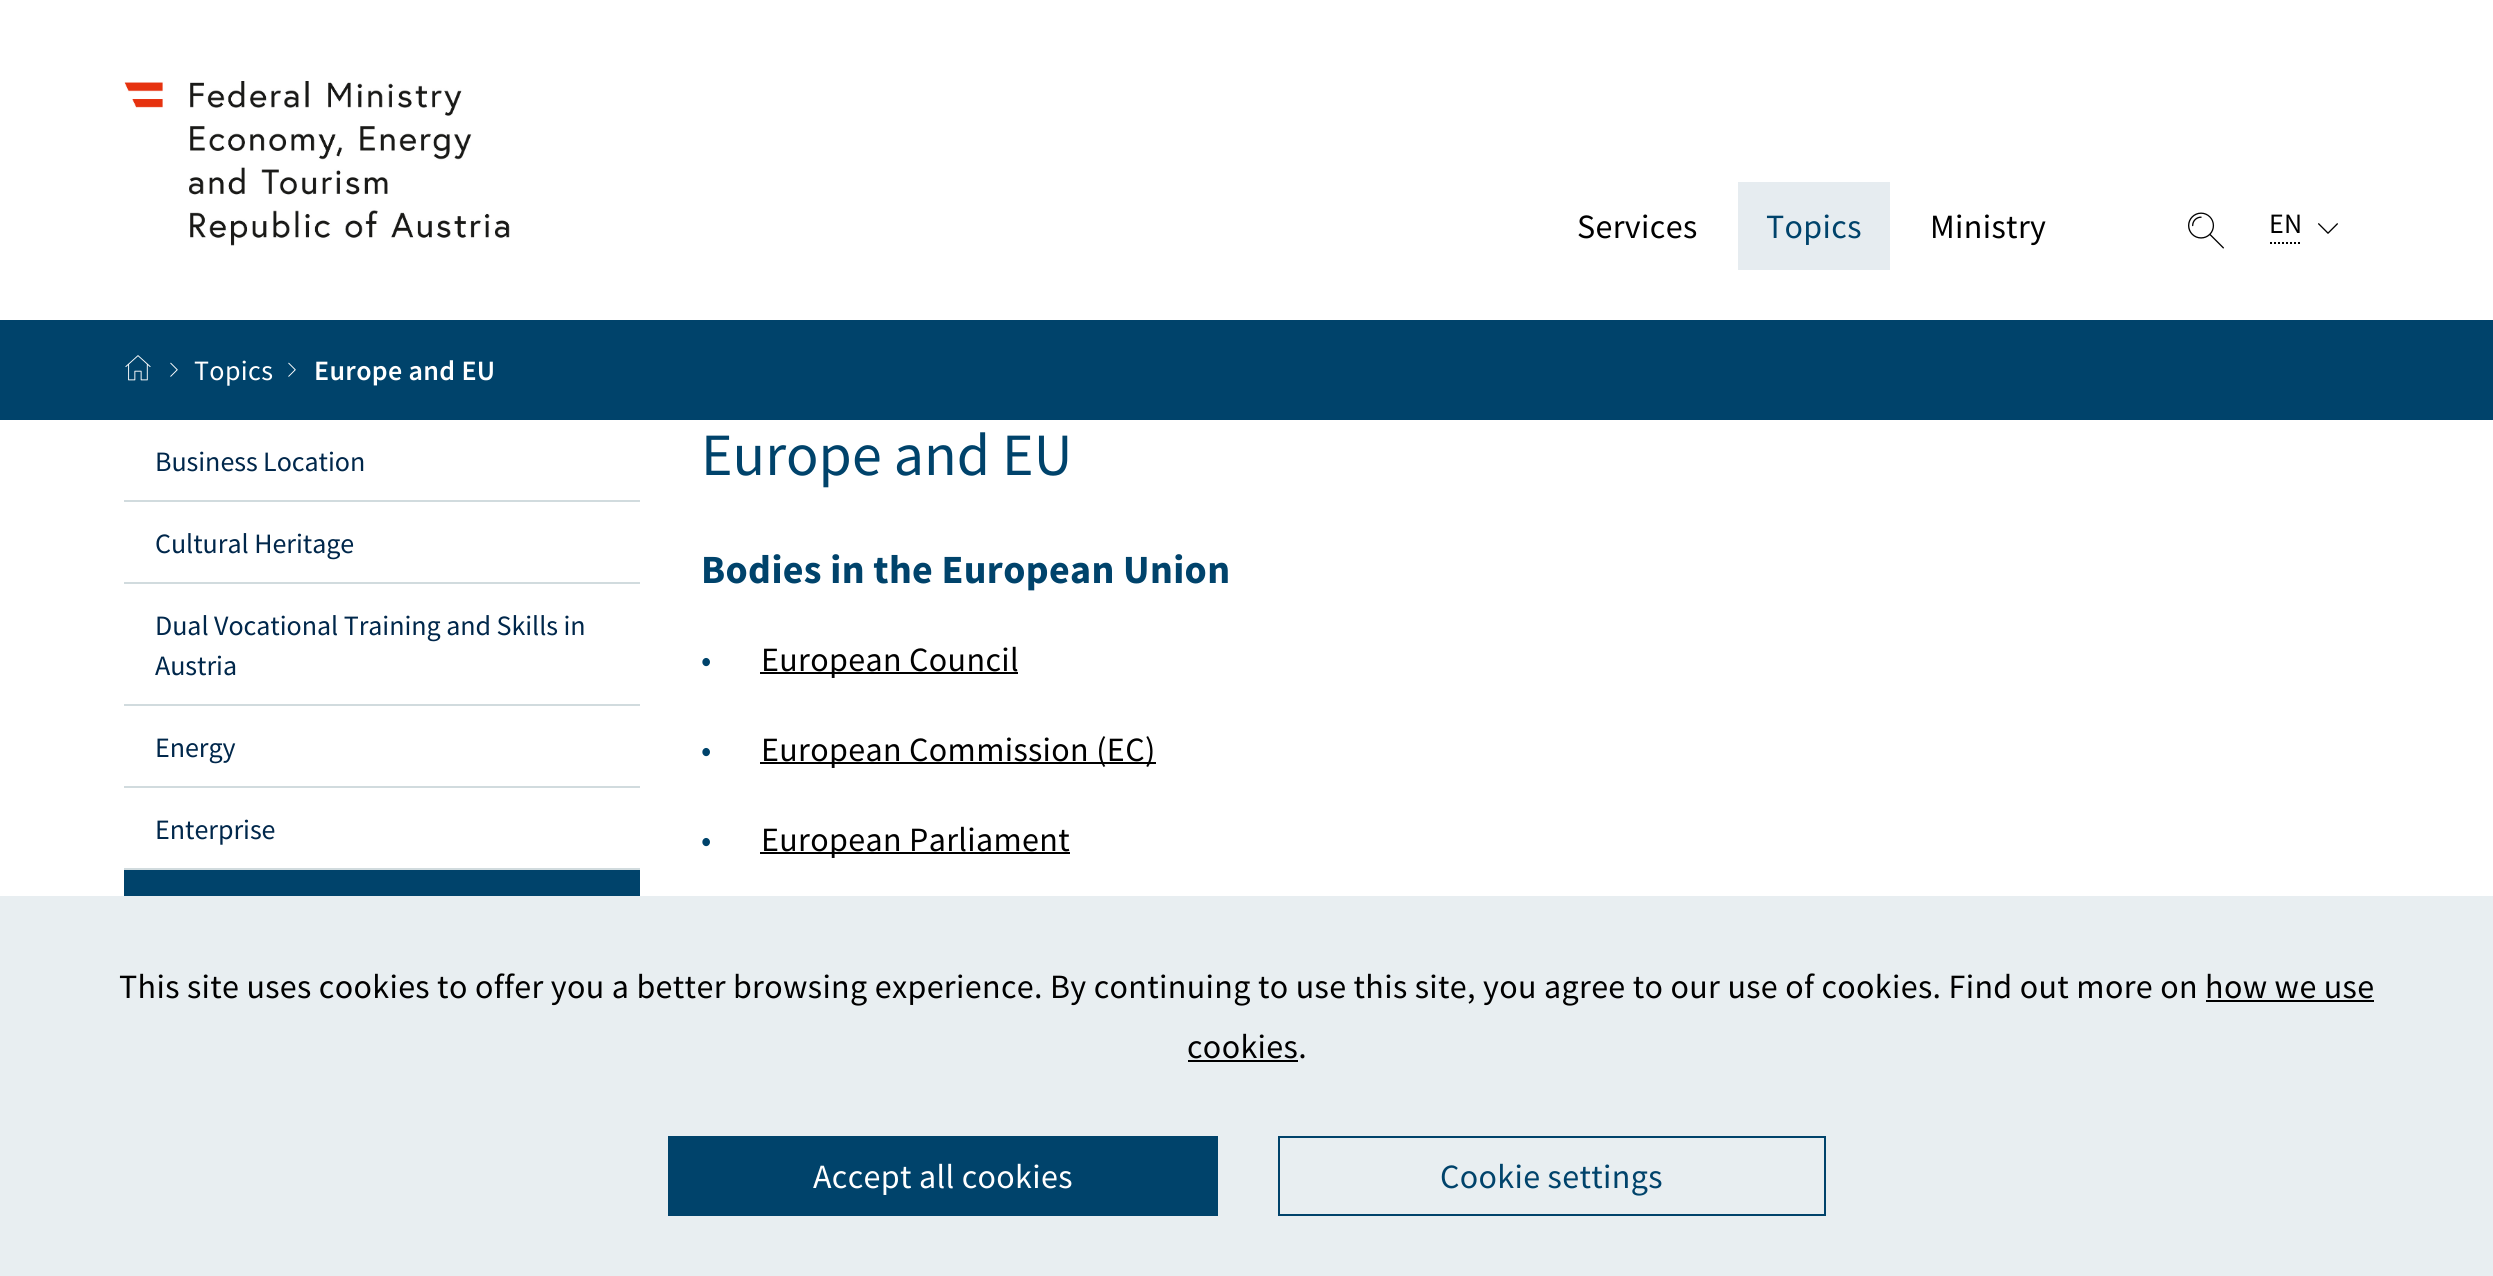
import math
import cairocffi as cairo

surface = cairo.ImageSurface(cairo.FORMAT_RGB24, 2493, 1276)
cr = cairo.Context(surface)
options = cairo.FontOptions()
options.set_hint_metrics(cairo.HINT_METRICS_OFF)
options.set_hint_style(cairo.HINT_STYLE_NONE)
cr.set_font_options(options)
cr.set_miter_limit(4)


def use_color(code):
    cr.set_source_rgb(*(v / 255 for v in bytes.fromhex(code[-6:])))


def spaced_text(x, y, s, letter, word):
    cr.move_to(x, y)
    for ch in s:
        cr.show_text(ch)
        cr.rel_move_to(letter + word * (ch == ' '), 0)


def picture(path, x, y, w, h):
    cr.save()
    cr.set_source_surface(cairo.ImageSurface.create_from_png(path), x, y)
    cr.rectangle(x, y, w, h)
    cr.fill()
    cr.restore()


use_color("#ffffff")
cr.paint()
picture("img1.png", 124, 81, 386, 165)
cr.select_font_face("Source Sans Pro")
cr.set_font_size(34)
use_color("#000000")
spaced_text(1577, 238, "Services", 0.35, 0)
use_color("#e6ecf0")
cr.rectangle(1738, 182, 152, 88)
cr.fill()
use_color("#00436b")
spaced_text(1766, 238, "Topics", 0.35, 0)
use_color("#000000")
spaced_text(1930, 238, "Ministry", 0.35, 0)
picture("img2.png", 2188, 212, 36, 37)
cr.set_font_size(28)
spaced_text(2269, 233, "EN", 0.35, 0)
cr.new_path()
cr.move_to(2270, 243)
cr.line_to(2302, 243)
cr.set_dash([2, 2])
cr.stroke()
picture("img3.png", 2318, 223, 20, 11)
use_color("#00436b")
cr.rectangle(0, 320, 2493, 100)
cr.fill()
picture("img4.png", 125, 355, 26, 26)
picture("img5.png", 170, 362, 8, 15)
use_color("#ffffff")
spaced_text(194, 380, "Topics", 0.35, 0)
picture("img5.png", 288, 362, 8, 15)
cr.select_font_face("Source Sans Pro SemiBold")
spaced_text(314, 380, "Europe and EU", 0.35, 0)
use_color("#d1dbde")
cr.rectangle(124, 500, 516, 2)
cr.fill()
cr.select_font_face("Source Sans Pro")
use_color("#00274b")
spaced_text(155, 471, "Business Location", -0.05, 0)
use_color("#d1dbde")
cr.rectangle(124, 582, 516, 2)
cr.fill()
use_color("#00274b")
spaced_text(155, 553, "Cultural Heritage", -0.05, 0)
use_color("#d1dbde")
cr.rectangle(124, 704, 516, 2)
cr.fill()
use_color("#00274b")
spaced_text(155, 635, "Dual Vocational Training and Skills in", -0.05, 0)
spaced_text(155, 675, "Austria", -0.05, 0)
use_color("#d1dbde")
cr.rectangle(124, 786, 516, 2)
cr.fill()
use_color("#00274b")
spaced_text(155, 757, "Energy", -0.05, 0)
use_color("#d1dbde")
cr.rectangle(124, 868, 516, 2)
cr.fill()
use_color("#00274b")
spaced_text(155, 839, "Enterprise", -0.05, 0)
use_color("#00436b")
cr.rectangle(124, 870, 516, 26)
cr.fill()
cr.set_font_size(60)
cr.move_to(701, 475)
cr.show_text("Europe and EU")
cr.select_font_face("Source Sans Pro", cairo.FONT_SLANT_NORMAL, cairo.FONT_WEIGHT_BOLD)
cr.set_font_size(40)
spaced_text(701, 583, "Bodies in the European Union", 0.35, 0)
cr.select_font_face("Source Sans Pro")
cr.set_font_size(34)
spaced_text(701, 671, "•", 0.35, 0)
use_color("#000000")
cr.rectangle(760, 672, 258, 2)
cr.fill()
spaced_text(761, 671, "European Council", 0.35, 0)
use_color("#00436b")
spaced_text(701, 761, "•", 0.35, 0)
use_color("#000000")
cr.rectangle(760, 762, 396, 2)
cr.fill()
spaced_text(761, 761, "European Commission (EC)", 0.35, 0)
use_color("#00436b")
spaced_text(701, 851, "•", 0.35, 0)
use_color("#000000")
cr.rectangle(760, 852, 310, 2)
cr.fill()
spaced_text(761, 851, "European Parliament", 0.35, 0)
use_color("#e8eef1")
cr.rectangle(0, 896, 2493, 380)
cr.fill()
use_color("#000000")
spaced_text(119, 998, "This site uses cookies to offer you a better browsing experience. By continuing to use this site, you agree to our use of cookies. Find out more on how we use", 0.35, 0)
spaced_text(1187, 1058, "cookies.", 0.35, 0)
cr.rectangle(2206, 1000, 168, 2)
cr.fill()
cr.rectangle(1188, 1060, 110, 2)
cr.fill()
use_color("#00436b")
cr.rectangle(668, 1136, 550, 80)
cr.fill()
use_color("#ffffff")
spaced_text(813, 1188, "Accept all cookies", 0.35, 0)
cr.rectangle(1279, 1137, 546, 78)
use_color("#00436b")
cr.set_dash([])
cr.stroke()
spaced_text(1440, 1188, "Cookie settings", 0.35, 0)
surface.write_to_png("result.png")
